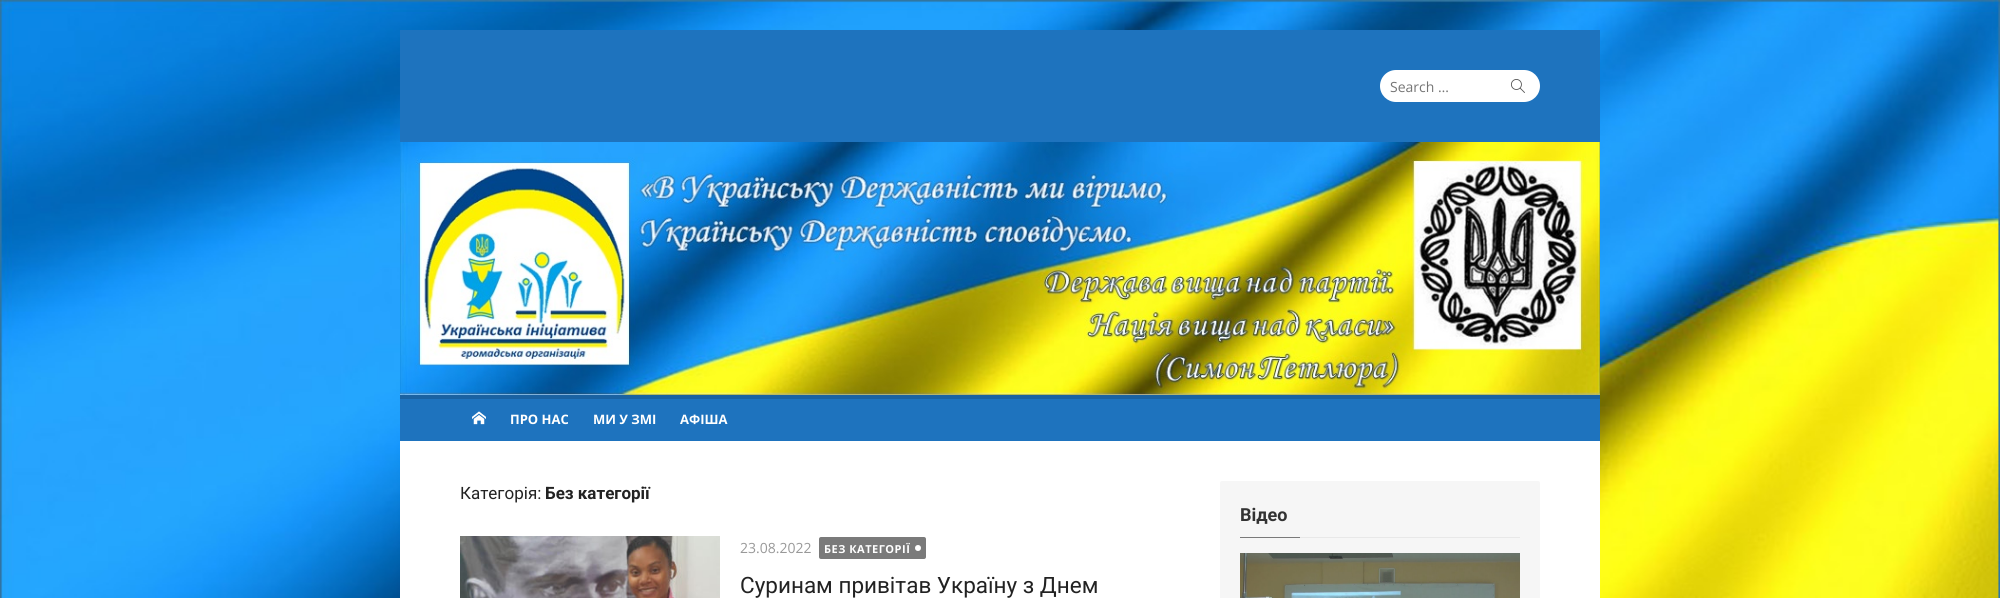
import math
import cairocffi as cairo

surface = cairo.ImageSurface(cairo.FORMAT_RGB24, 2000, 598)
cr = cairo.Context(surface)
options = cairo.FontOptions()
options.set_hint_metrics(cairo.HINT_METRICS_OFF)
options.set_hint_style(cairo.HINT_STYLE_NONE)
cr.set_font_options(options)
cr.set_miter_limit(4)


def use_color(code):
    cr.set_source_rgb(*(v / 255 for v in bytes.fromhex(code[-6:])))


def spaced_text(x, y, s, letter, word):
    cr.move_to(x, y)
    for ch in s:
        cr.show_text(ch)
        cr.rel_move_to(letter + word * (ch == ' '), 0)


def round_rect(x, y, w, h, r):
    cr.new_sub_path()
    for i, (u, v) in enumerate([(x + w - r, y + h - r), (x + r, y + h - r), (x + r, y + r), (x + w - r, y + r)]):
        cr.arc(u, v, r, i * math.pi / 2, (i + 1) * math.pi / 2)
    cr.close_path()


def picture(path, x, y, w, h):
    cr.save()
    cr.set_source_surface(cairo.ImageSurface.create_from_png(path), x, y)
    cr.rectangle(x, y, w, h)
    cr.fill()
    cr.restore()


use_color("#ffffff")
cr.paint()
picture("img1.png", 0, 0, 2000, 598)
use_color("#ffffff")
cr.rectangle(400, 441, 1200, 157)
cr.fill()
use_color("#1e73be")
cr.rectangle(400, 30, 1200, 411)
cr.fill()
use_color("#ffffff")
round_rect(1380, 70, 160, 32, 16)
cr.fill()
cr.select_font_face("Open Sans")
cr.set_font_size(14)
use_color("#757575")
cr.move_to(1390, 92)
cr.show_text("Search …")
picture("img2.png", 1510, 79, 15, 14)
picture("img3.png", 400, 142, 1200, 253)
use_color("#1a62a2")
cr.rectangle(400, 395, 1200, 4)
cr.fill()
picture("img4.png", 472, 411, 14, 14)
cr.select_font_face("Open Sans", cairo.FONT_SLANT_NORMAL, cairo.FONT_WEIGHT_BOLD)
cr.set_font_size(13)
use_color("#ffffff")
cr.move_to(510, 424)
cr.show_text("ПРО НАС")
cr.move_to(593, 424)
cr.show_text("МИ У ЗМІ")
cr.move_to(680, 424)
cr.show_text("АФІША")
cr.select_font_face("Roboto")
cr.set_font_size(17)
use_color("#222222")
cr.move_to(460, 499)
cr.show_text("Категорія:")
cr.select_font_face("Roboto", cairo.FONT_SLANT_NORMAL, cairo.FONT_WEIGHT_BOLD)
cr.move_to(545, 499)
cr.show_text("Без категорії")
picture("img5.png", 460, 536, 260, 62)
cr.select_font_face("Open Sans")
cr.set_font_size(14)
use_color("#999999")
cr.move_to(740, 553)
cr.show_text("23.08.2022")
use_color("#7a7a7a")
round_rect(819, 537, 107, 22, 2)
cr.fill()
cr.select_font_face("Open Sans", cairo.FONT_SLANT_NORMAL, cairo.FONT_WEIGHT_BOLD)
cr.set_font_size(11)
use_color("#ffffff")
spaced_text(824, 553, "БЕЗ КАТЕГОРІЇ", 0.5, 0)
cr.new_path()
cr.arc(918, 548, 3, 0, 2 * math.pi)
cr.fill()
cr.select_font_face("Roboto")
cr.set_font_size(22.5)
use_color("#222222")
cr.move_to(740, 593)
cr.show_text("Суринам привітав Україну з Днем")
use_color("#f6f6f6")
round_rect(1220, 481, 320, 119, 2)
cr.fill()
use_color("#e8e8e8")
cr.rectangle(1300, 537, 220, 1)
cr.fill()
cr.select_font_face("Roboto", cairo.FONT_SLANT_NORMAL, cairo.FONT_WEIGHT_BOLD)
cr.set_font_size(18)
use_color("#333333")
cr.move_to(1240, 521)
cr.show_text("Відео")
use_color("#7a7a7a")
cr.rectangle(1240, 537, 60, 1)
cr.fill()
picture("img6.png", 1240, 553, 280, 45)
surface.write_to_png("result.png")
